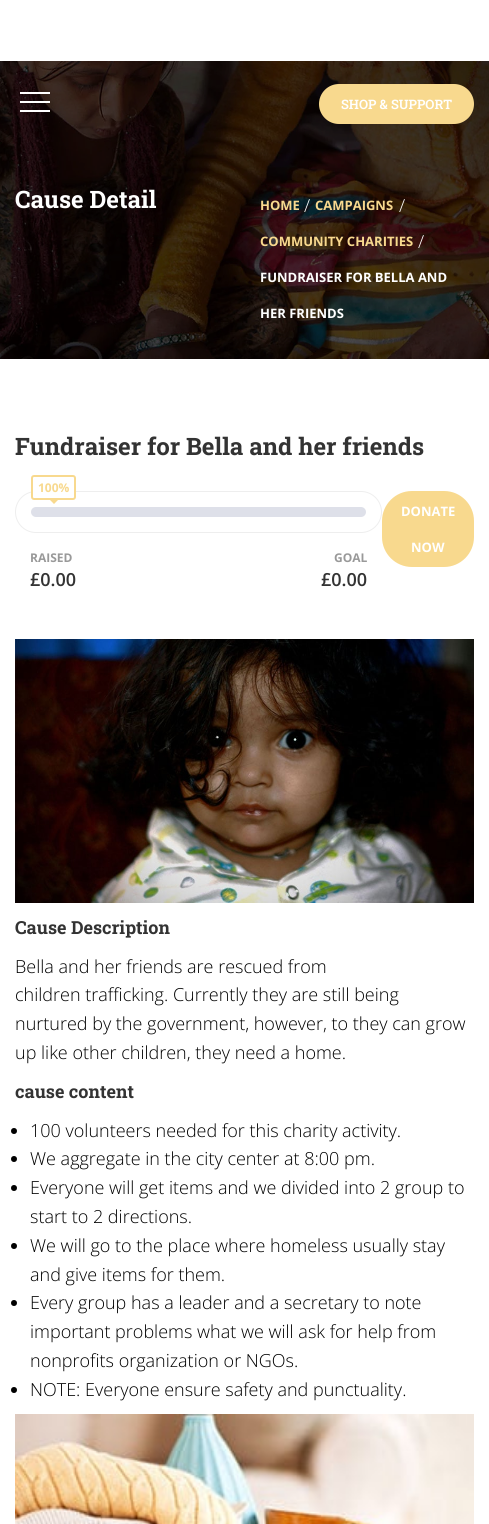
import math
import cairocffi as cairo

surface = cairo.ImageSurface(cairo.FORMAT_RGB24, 489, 1524)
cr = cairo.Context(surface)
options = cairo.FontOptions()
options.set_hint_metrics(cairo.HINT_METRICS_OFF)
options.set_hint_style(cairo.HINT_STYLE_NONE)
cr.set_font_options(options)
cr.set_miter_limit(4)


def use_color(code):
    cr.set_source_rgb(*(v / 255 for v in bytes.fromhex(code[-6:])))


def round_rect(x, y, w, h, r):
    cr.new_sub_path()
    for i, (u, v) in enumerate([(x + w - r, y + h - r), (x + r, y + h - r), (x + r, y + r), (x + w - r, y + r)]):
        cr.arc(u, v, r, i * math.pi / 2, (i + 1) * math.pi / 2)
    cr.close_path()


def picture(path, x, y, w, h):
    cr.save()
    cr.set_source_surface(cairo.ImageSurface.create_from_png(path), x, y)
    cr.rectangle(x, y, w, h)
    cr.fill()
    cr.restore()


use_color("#ffffff")
cr.paint()
picture("img1.png", 0, 61, 489, 298)
use_color("#ffffff")
cr.rectangle(20, 101, 30, 2)
cr.fill()
cr.rectangle(20, 92, 30, 2)
cr.fill()
cr.rectangle(20, 110, 30, 2)
cr.fill()
use_color("#f8d98e")
round_rect(320, 85, 153, 38, 19)
cr.fill_preserve()
cr.stroke()
cr.select_font_face("Roboto Slab SemiBold")
cr.set_font_size(13)
use_color("#ffffff")
cr.move_to(341, 109)
cr.show_text("SHOP & SUPPORT")
cr.select_font_face("Roboto Slab", cairo.FONT_SLANT_NORMAL, cairo.FONT_WEIGHT_BOLD)
cr.set_font_size(24)
cr.move_to(15, 208)
cr.show_text("Cause Detail")
cr.select_font_face("Open Sans", cairo.FONT_SLANT_NORMAL, cairo.FONT_WEIGHT_BOLD)
cr.set_font_size(13)
use_color("#f8d98e")
cr.move_to(260, 210)
cr.show_text("HOME")
cr.select_font_face("Open Sans Light")
cr.set_font_size(18)
use_color("#ffffff")
cr.move_to(304, 212)
cr.show_text("/")
cr.select_font_face("Open Sans", cairo.FONT_SLANT_NORMAL, cairo.FONT_WEIGHT_BOLD)
cr.set_font_size(13)
use_color("#f8d98e")
cr.move_to(315, 210)
cr.show_text("CAMPAIGNS")
cr.select_font_face("Open Sans Light")
cr.set_font_size(18)
use_color("#ffffff")
cr.move_to(399, 212)
cr.show_text("/")
cr.select_font_face("Open Sans", cairo.FONT_SLANT_NORMAL, cairo.FONT_WEIGHT_BOLD)
cr.set_font_size(13)
use_color("#f8d98e")
cr.move_to(260, 246)
cr.show_text("COMMUNITY CHARITIES")
cr.select_font_face("Open Sans Light")
cr.set_font_size(18)
use_color("#ffffff")
cr.move_to(418, 248)
cr.show_text("/")
cr.select_font_face("Open Sans", cairo.FONT_SLANT_NORMAL, cairo.FONT_WEIGHT_BOLD)
cr.set_font_size(13)
cr.move_to(260, 282)
cr.show_text("FUNDRAISER FOR BELLA AND")
cr.move_to(260, 318)
cr.show_text("HER FRIENDS")
cr.select_font_face("Roboto Slab", cairo.FONT_SLANT_NORMAL, cairo.FONT_WEIGHT_BOLD)
cr.set_font_size(24)
use_color("#333333")
cr.move_to(15, 455)
cr.show_text("Fundraiser for Bella and her friends")
round_rect(15.5, 491.5, 366, 41, 20.5)
use_color("#eeeeee")
cr.set_line_width(1)
cr.stroke()
use_color("#dee0e9")
round_rect(31, 507, 335, 10, 5)
cr.fill()
use_color("#ffffff")
round_rect(32, 476, 43, 23, 2)
cr.fill_preserve()
use_color("#f8d98e")
cr.set_line_width(2)
cr.stroke()
cr.select_font_face("Open Sans", cairo.FONT_SLANT_NORMAL, cairo.FONT_WEIGHT_BOLD)
cr.set_font_size(12)
cr.move_to(38, 492)
cr.show_text("100%")
cr.new_path()
cr.move_to(48, 498)
cr.line_to(60, 498)
cr.line_to(54, 504)
cr.close_path()
cr.fill()
use_color("#999999")
cr.move_to(30, 562)
cr.show_text("RAISED")
cr.select_font_face("Open Sans SemiBold")
cr.set_font_size(18)
use_color("#333333")
cr.move_to(30, 586)
cr.show_text("£0.00")
cr.select_font_face("Open Sans", cairo.FONT_SLANT_NORMAL, cairo.FONT_WEIGHT_BOLD)
cr.set_font_size(12)
use_color("#999999")
cr.move_to(334, 562)
cr.show_text("GOAL")
cr.select_font_face("Open Sans SemiBold")
cr.set_font_size(18)
use_color("#333333")
cr.move_to(321, 586)
cr.show_text("£0.00")
use_color("#f8d98e")
round_rect(383, 492, 90, 74, 29)
cr.fill_preserve()
cr.stroke()
cr.select_font_face("Open Sans", cairo.FONT_SLANT_NORMAL, cairo.FONT_WEIGHT_BOLD)
cr.set_font_size(13)
use_color("#ffffff")
cr.move_to(401, 516)
cr.show_text("DONATE")
cr.move_to(411, 552)
cr.show_text("NOW")
picture("img2.png", 15, 639, 459, 264)
cr.select_font_face("Roboto Slab", cairo.FONT_SLANT_NORMAL, cairo.FONT_WEIGHT_BOLD)
cr.set_font_size(18)
use_color("#333333")
cr.move_to(15, 934)
cr.show_text("Cause Description")
cr.select_font_face("Open Sans Light")
use_color("#000000")
cr.move_to(15, 973)
cr.show_text("Bella and her friends are rescued from")
cr.move_to(15, 1001)
cr.show_text("children trafficking. Currently they are still being")
cr.move_to(15, 1030)
cr.show_text("nurtured by the government, however, to they can grow")
cr.move_to(15, 1059)
cr.show_text("up like other children, they need a home.")
cr.select_font_face("Roboto Slab", cairo.FONT_SLANT_NORMAL, cairo.FONT_WEIGHT_BOLD)
use_color("#333333")
cr.move_to(15, 1098)
cr.show_text("cause content")
use_color("#000000")
cr.new_path()
cr.arc(14, 1131, 3, 0, 2 * math.pi)
cr.fill()
cr.select_font_face("Open Sans Light")
cr.move_to(30, 1137)
cr.show_text("100 volunteers needed for this charity activity.")
cr.new_path()
cr.arc(14, 1159, 3, 0, 2 * math.pi)
cr.fill()
cr.move_to(30, 1165)
cr.show_text("We aggregate in the city center at 8:00 pm.")
cr.new_path()
cr.arc(14, 1188, 3, 0, 2 * math.pi)
cr.fill()
cr.move_to(30, 1194)
cr.show_text("Everyone will get items and we divided into 2 group to")
cr.move_to(30, 1223)
cr.show_text("start to 2 directions.")
cr.new_path()
cr.arc(14, 1246, 3, 0, 2 * math.pi)
cr.fill()
cr.move_to(30, 1252)
cr.show_text("We will go to the place where homeless usually stay")
cr.move_to(30, 1281)
cr.show_text("and give items for them.")
cr.new_path()
cr.arc(14, 1303, 3, 0, 2 * math.pi)
cr.fill()
cr.move_to(30, 1309)
cr.show_text("Every group has a leader and a secretary to note")
cr.move_to(30, 1338)
cr.show_text("important problems what we will ask for help from")
cr.move_to(30, 1367)
cr.show_text("nonprofits organization or NGOs.")
cr.new_path()
cr.arc(14, 1390, 3, 0, 2 * math.pi)
cr.fill()
cr.move_to(30, 1396)
cr.show_text("NOTE: Everyone ensure safety and punctuality.")
picture("img3.png", 15, 1414, 459, 110)
surface.write_to_png("result.png")
